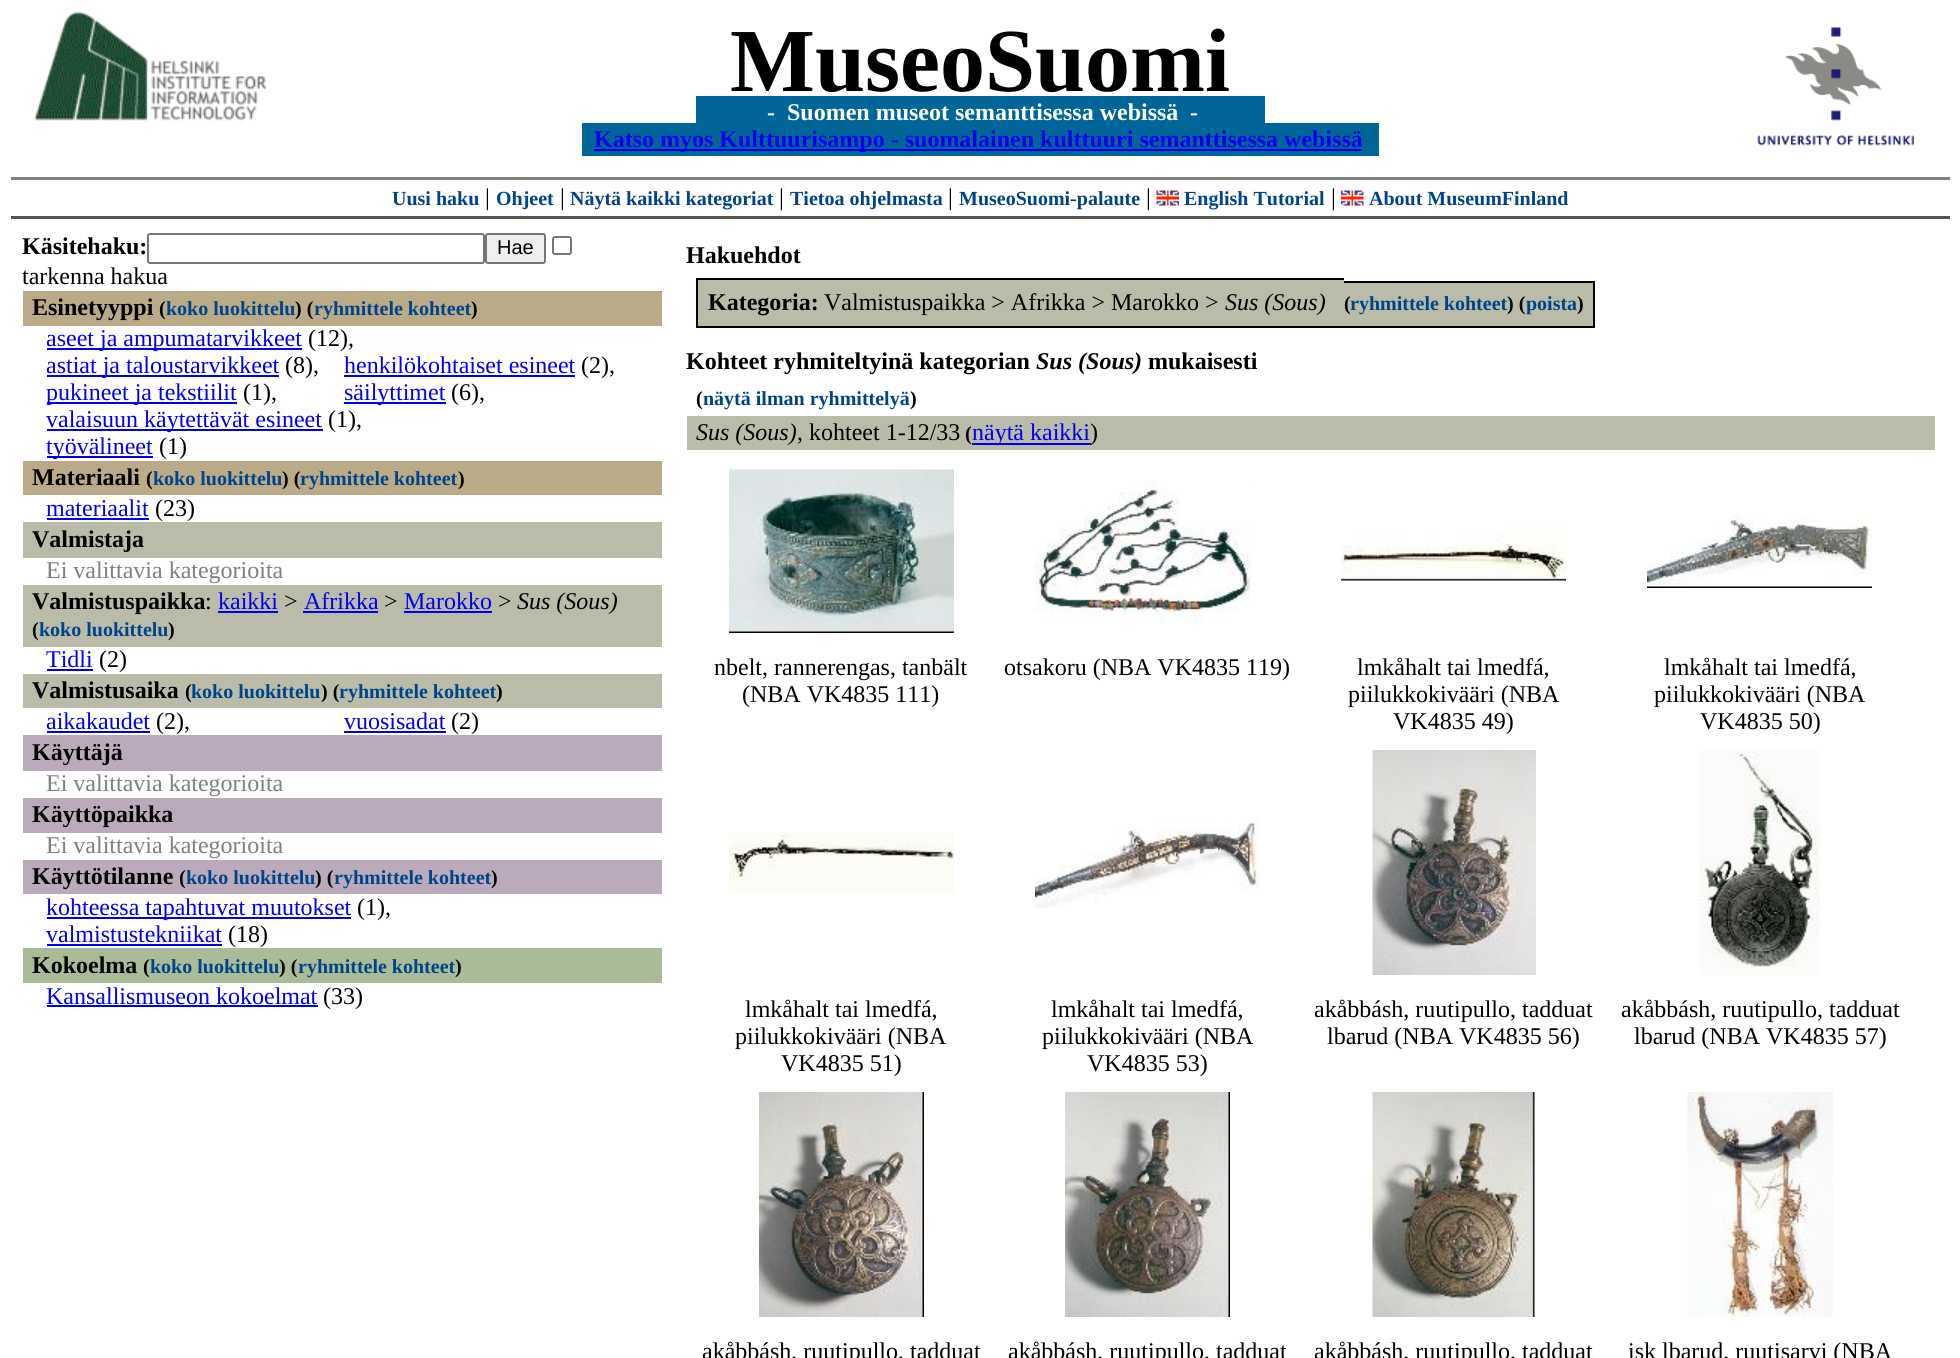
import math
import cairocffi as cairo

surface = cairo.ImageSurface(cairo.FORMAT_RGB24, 1960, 1358)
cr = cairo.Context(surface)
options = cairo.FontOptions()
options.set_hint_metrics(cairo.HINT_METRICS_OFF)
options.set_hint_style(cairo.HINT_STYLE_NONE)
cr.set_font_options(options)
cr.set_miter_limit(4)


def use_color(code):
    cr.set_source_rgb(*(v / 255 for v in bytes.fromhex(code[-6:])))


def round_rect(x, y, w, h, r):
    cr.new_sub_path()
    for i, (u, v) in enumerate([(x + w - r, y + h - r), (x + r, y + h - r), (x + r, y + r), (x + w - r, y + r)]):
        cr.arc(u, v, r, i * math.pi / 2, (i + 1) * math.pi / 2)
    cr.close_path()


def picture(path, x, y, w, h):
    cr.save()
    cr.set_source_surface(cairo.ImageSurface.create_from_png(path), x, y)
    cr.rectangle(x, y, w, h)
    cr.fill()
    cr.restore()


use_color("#ffffff")
cr.paint()
picture("img1.png", 34, 11, 233, 110)
cr.select_font_face("Liberation Serif", cairo.FONT_SLANT_NORMAL, cairo.FONT_WEIGHT_BOLD)
cr.set_font_size(90)
use_color("#000000")
cr.move_to(730, 91)
cr.show_text("MuseoSuomi")
picture("img2.png", 1757, 26, 157, 120)
use_color("#006699")
cr.rectangle(696, 96, 569, 27)
cr.fill()
cr.set_font_size(24)
use_color("#ffffff")
cr.move_to(767, 120)
cr.show_text("-")
cr.move_to(787, 120)
cr.show_text("Suomen museot semanttisessa webissä")
cr.move_to(1190, 120)
cr.show_text("-")
use_color("#006699")
cr.rectangle(582, 123, 797, 33)
cr.fill()
use_color("#0000ee")
cr.rectangle(594, 149, 768, 2)
cr.fill()
cr.move_to(594, 147)
cr.show_text("Katso myos Kulttuurisampo - suomalainen kulttuuri semanttisessa webissä")
use_color("#808080")
cr.rectangle(11, 177, 1939, 3)
cr.fill()
use_color("#555555")
cr.rectangle(11, 216, 1939, 3)
cr.fill()
cr.set_font_size(20)
use_color("#004488")
cr.move_to(392, 205)
cr.show_text("Uusi haku")
cr.select_font_face("Liberation Serif")
cr.set_font_size(24)
use_color("#000000")
cr.move_to(485, 205)
cr.show_text("|")
cr.select_font_face("Liberation Serif", cairo.FONT_SLANT_NORMAL, cairo.FONT_WEIGHT_BOLD)
cr.set_font_size(20)
use_color("#004488")
cr.move_to(496, 205)
cr.show_text("Ohjeet")
cr.select_font_face("Liberation Serif")
cr.set_font_size(24)
use_color("#000000")
cr.move_to(560, 205)
cr.show_text("|")
cr.select_font_face("Liberation Serif", cairo.FONT_SLANT_NORMAL, cairo.FONT_WEIGHT_BOLD)
cr.set_font_size(20)
use_color("#004488")
cr.move_to(570, 205)
cr.show_text("Näytä kaikki kategoriat")
cr.select_font_face("Liberation Serif")
cr.set_font_size(24)
use_color("#000000")
cr.move_to(779, 205)
cr.show_text("|")
cr.select_font_face("Liberation Serif", cairo.FONT_SLANT_NORMAL, cairo.FONT_WEIGHT_BOLD)
cr.set_font_size(20)
use_color("#004488")
cr.move_to(790, 205)
cr.show_text("Tietoa ohjelmasta")
cr.select_font_face("Liberation Serif")
cr.set_font_size(24)
use_color("#000000")
cr.move_to(948, 205)
cr.show_text("|")
cr.select_font_face("Liberation Serif", cairo.FONT_SLANT_NORMAL, cairo.FONT_WEIGHT_BOLD)
cr.set_font_size(20)
use_color("#004488")
cr.move_to(959, 205)
cr.show_text("MuseoSuomi-palaute")
cr.select_font_face("Liberation Serif")
cr.set_font_size(24)
use_color("#000000")
cr.move_to(1146, 205)
cr.show_text("|")
picture("img3.png", 1156, 190, 23, 16)
cr.select_font_face("Liberation Serif", cairo.FONT_SLANT_NORMAL, cairo.FONT_WEIGHT_BOLD)
cr.set_font_size(20)
use_color("#004488")
cr.move_to(1184, 205)
cr.show_text("English Tutorial")
cr.select_font_face("Liberation Serif")
cr.set_font_size(24)
use_color("#000000")
cr.move_to(1331, 205)
cr.show_text("|")
picture("img4.png", 1341, 190, 23, 16)
cr.select_font_face("Liberation Serif", cairo.FONT_SLANT_NORMAL, cairo.FONT_WEIGHT_BOLD)
cr.set_font_size(20)
use_color("#004488")
cr.move_to(1369, 205)
cr.show_text("About MuseumFinland")
cr.set_font_size(24)
use_color("#000000")
cr.move_to(22, 254)
cr.show_text("Käsitehaku:")
round_rect(148, 234, 336, 29, 2)
use_color("#767676")
cr.stroke()
use_color("#efefef")
round_rect(486, 234, 59, 29, 2)
cr.fill_preserve()
use_color("#767676")
cr.stroke()
cr.select_font_face("Liberation Sans")
cr.set_font_size(20)
use_color("#000000")
cr.move_to(497, 254)
cr.show_text("Hae")
round_rect(553, 237, 18, 17, 2)
use_color("#767676")
cr.stroke()
cr.select_font_face("Liberation Serif")
cr.set_font_size(24)
use_color("#000000")
cr.move_to(22, 284)
cr.show_text("tarkenna hakua")
use_color("#bbaa88")
cr.rectangle(23, 291, 639, 35)
cr.fill()
cr.select_font_face("Liberation Serif", cairo.FONT_SLANT_NORMAL, cairo.FONT_WEIGHT_BOLD)
use_color("#000000")
cr.move_to(32, 315)
cr.show_text("Esinetyyppi")
cr.set_font_size(20)
cr.move_to(159, 315)
cr.show_text("(")
use_color("#004488")
cr.move_to(166, 315)
cr.show_text("koko luokittelu")
use_color("#000000")
cr.move_to(295, 315)
cr.show_text(") (")
use_color("#004488")
cr.move_to(314, 315)
cr.show_text("ryhmittele kohteet")
use_color("#000000")
cr.move_to(471, 315)
cr.show_text(")")
use_color("#0000ee")
cr.rectangle(47, 348, 255, 2)
cr.fill()
cr.select_font_face("Liberation Serif")
cr.set_font_size(24)
cr.move_to(46, 346)
cr.show_text("aseet ja ampumatarvikkeet")
use_color("#000000")
cr.move_to(308, 346)
cr.show_text("(12),")
use_color("#0000ee")
cr.rectangle(47, 375, 232, 2)
cr.fill()
cr.move_to(46, 373)
cr.show_text("astiat ja taloustarvikkeet")
use_color("#000000")
cr.move_to(285, 373)
cr.show_text("(8),")
use_color("#0000ee")
cr.move_to(344, 373)
cr.show_text("henkilökohtaiset esineet")
cr.rectangle(344, 375, 231, 2)
cr.fill()
use_color("#000000")
cr.move_to(581, 373)
cr.show_text("(2),")
use_color("#0000ee")
cr.rectangle(47, 402, 190, 2)
cr.fill()
cr.move_to(46, 400)
cr.show_text("pukineet ja tekstiilit")
use_color("#000000")
cr.move_to(243, 400)
cr.show_text("(1),")
use_color("#0000ee")
cr.rectangle(344, 402, 102, 2)
cr.fill()
cr.move_to(344, 400)
cr.show_text("säilyttimet")
use_color("#000000")
cr.move_to(451, 400)
cr.show_text("(6),")
use_color("#0000ee")
cr.rectangle(47, 429, 276, 2)
cr.fill()
cr.move_to(46, 427)
cr.show_text("valaisuun käytettävät esineet")
use_color("#000000")
cr.move_to(328, 427)
cr.show_text("(1),")
use_color("#0000ee")
cr.rectangle(47, 456, 106, 2)
cr.fill()
cr.move_to(46, 454)
cr.show_text("työvälineet")
use_color("#000000")
cr.move_to(159, 454)
cr.show_text("(1)")
use_color("#bbaa88")
cr.rectangle(23, 461, 639, 34)
cr.fill()
cr.select_font_face("Liberation Serif", cairo.FONT_SLANT_NORMAL, cairo.FONT_WEIGHT_BOLD)
use_color("#000000")
cr.move_to(32, 485)
cr.show_text("Materiaali")
cr.set_font_size(20)
cr.move_to(146, 485)
cr.show_text("(")
use_color("#004488")
cr.move_to(153, 485)
cr.show_text("koko luokittelu")
use_color("#000000")
cr.move_to(282, 485)
cr.show_text(") (")
use_color("#004488")
cr.move_to(300, 485)
cr.show_text("ryhmittele kohteet")
use_color("#000000")
cr.move_to(458, 485)
cr.show_text(")")
cr.select_font_face("Liberation Serif")
cr.set_font_size(24)
use_color("#0000ee")
cr.move_to(46, 516)
cr.show_text("materiaalit")
cr.rectangle(47, 518, 102, 2)
cr.fill()
use_color("#000000")
cr.move_to(155, 516)
cr.show_text("(23)")
use_color("#bbbbaa")
cr.rectangle(23, 522, 639, 36)
cr.fill()
cr.select_font_face("Liberation Serif", cairo.FONT_SLANT_NORMAL, cairo.FONT_WEIGHT_BOLD)
use_color("#000000")
cr.move_to(32, 547)
cr.show_text("Valmistaja")
cr.select_font_face("Liberation Serif")
use_color("#808080")
cr.move_to(46, 578)
cr.show_text("Ei valittavia kategorioita")
use_color("#bbbbaa")
cr.rectangle(23, 585, 639, 62)
cr.fill()
cr.select_font_face("Liberation Serif", cairo.FONT_SLANT_NORMAL, cairo.FONT_WEIGHT_BOLD)
use_color("#000000")
cr.move_to(32, 609)
cr.show_text("Valmistuspaikka")
cr.select_font_face("Liberation Serif")
cr.move_to(205, 609)
cr.show_text(":")
use_color("#0000ee")
cr.move_to(218, 609)
cr.show_text("kaikki")
cr.rectangle(218, 611, 60, 2)
cr.fill()
use_color("#000000")
cr.move_to(284, 609)
cr.show_text(">")
use_color("#0000ee")
cr.move_to(304, 609)
cr.show_text("Afrikka")
cr.rectangle(303, 611, 75, 2)
cr.fill()
use_color("#000000")
cr.move_to(384, 609)
cr.show_text(">")
use_color("#0000ee")
cr.move_to(404, 609)
cr.show_text("Marokko")
cr.rectangle(404, 611, 88, 2)
cr.fill()
use_color("#000000")
cr.move_to(498, 609)
cr.show_text(">")
cr.select_font_face("Liberation Serif", cairo.FONT_SLANT_ITALIC)
cr.move_to(517, 609)
cr.show_text("Sus (Sous)")
cr.select_font_face("Liberation Serif", cairo.FONT_SLANT_NORMAL, cairo.FONT_WEIGHT_BOLD)
cr.set_font_size(20)
cr.move_to(32, 636)
cr.show_text("(")
use_color("#004488")
cr.move_to(39, 636)
cr.show_text("koko luokittelu")
use_color("#000000")
cr.move_to(168, 636)
cr.show_text(")")
cr.select_font_face("Liberation Serif")
cr.set_font_size(24)
use_color("#0000ee")
cr.move_to(46, 667)
cr.show_text("Tidli")
cr.rectangle(47, 669, 46, 2)
cr.fill()
use_color("#000000")
cr.move_to(99, 667)
cr.show_text("(2)")
use_color("#bbbbaa")
cr.rectangle(23, 674, 639, 34)
cr.fill()
cr.select_font_face("Liberation Serif", cairo.FONT_SLANT_NORMAL, cairo.FONT_WEIGHT_BOLD)
use_color("#000000")
cr.move_to(32, 698)
cr.show_text("Valmistusaika")
cr.set_font_size(20)
cr.move_to(185, 698)
cr.show_text("(")
use_color("#004488")
cr.move_to(191, 698)
cr.show_text("koko luokittelu")
use_color("#000000")
cr.move_to(321, 698)
cr.show_text(") (")
use_color("#004488")
cr.move_to(339, 698)
cr.show_text("ryhmittele kohteet")
use_color("#000000")
cr.move_to(496, 698)
cr.show_text(")")
cr.select_font_face("Liberation Serif")
cr.set_font_size(24)
use_color("#0000ee")
cr.move_to(46, 729)
cr.show_text("aikakaudet")
cr.rectangle(47, 731, 103, 2)
cr.fill()
use_color("#000000")
cr.move_to(156, 729)
cr.show_text("(2),")
use_color("#0000ee")
cr.move_to(344, 729)
cr.show_text("vuosisadat")
cr.rectangle(344, 731, 102, 2)
cr.fill()
use_color("#000000")
cr.move_to(451, 729)
cr.show_text("(2)")
use_color("#bbaabb")
cr.rectangle(23, 735, 639, 36)
cr.fill()
cr.select_font_face("Liberation Serif", cairo.FONT_SLANT_NORMAL, cairo.FONT_WEIGHT_BOLD)
use_color("#000000")
cr.move_to(32, 760)
cr.show_text("Käyttäjä")
cr.select_font_face("Liberation Serif")
use_color("#808080")
cr.move_to(46, 791)
cr.show_text("Ei valittavia kategorioita")
use_color("#bbaabb")
cr.rectangle(23, 798, 639, 35)
cr.fill()
cr.select_font_face("Liberation Serif", cairo.FONT_SLANT_NORMAL, cairo.FONT_WEIGHT_BOLD)
use_color("#000000")
cr.move_to(32, 822)
cr.show_text("Käyttöpaikka")
cr.select_font_face("Liberation Serif")
use_color("#808080")
cr.move_to(46, 853)
cr.show_text("Ei valittavia kategorioita")
use_color("#bbaabb")
cr.rectangle(23, 860, 639, 34)
cr.fill()
cr.select_font_face("Liberation Serif", cairo.FONT_SLANT_NORMAL, cairo.FONT_WEIGHT_BOLD)
use_color("#000000")
cr.move_to(32, 884)
cr.show_text("Käyttötilanne")
cr.set_font_size(20)
cr.move_to(179, 884)
cr.show_text("(")
use_color("#004488")
cr.move_to(186, 884)
cr.show_text("koko luokittelu")
use_color("#000000")
cr.move_to(315, 884)
cr.show_text(") (")
use_color("#004488")
cr.move_to(334, 884)
cr.show_text("ryhmittele kohteet")
use_color("#000000")
cr.move_to(491, 884)
cr.show_text(")")
use_color("#0000ee")
cr.rectangle(47, 917, 304, 2)
cr.fill()
cr.select_font_face("Liberation Serif")
cr.set_font_size(24)
cr.move_to(46, 915)
cr.show_text("kohteessa tapahtuvat muutokset")
use_color("#000000")
cr.move_to(357, 915)
cr.show_text("(1),")
use_color("#0000ee")
cr.move_to(46, 942)
cr.show_text("valmistustekniikat")
cr.rectangle(47, 944, 175, 2)
cr.fill()
use_color("#000000")
cr.move_to(228, 942)
cr.show_text("(18)")
use_color("#aabb99")
cr.rectangle(23, 948, 639, 35)
cr.fill()
cr.select_font_face("Liberation Serif", cairo.FONT_SLANT_NORMAL, cairo.FONT_WEIGHT_BOLD)
use_color("#000000")
cr.move_to(32, 973)
cr.show_text("Kokoelma")
cr.set_font_size(20)
cr.move_to(143, 973)
cr.show_text("(")
use_color("#004488")
cr.move_to(150, 973)
cr.show_text("koko luokittelu")
use_color("#000000")
cr.move_to(279, 973)
cr.show_text(") (")
use_color("#004488")
cr.move_to(298, 973)
cr.show_text("ryhmittele kohteet")
use_color("#000000")
cr.move_to(455, 973)
cr.show_text(")")
cr.select_font_face("Liberation Serif")
cr.set_font_size(24)
use_color("#0000ee")
cr.move_to(46, 1004)
cr.show_text("Kansallismuseon kokoelmat")
cr.rectangle(47, 1005, 271, 2)
cr.fill()
use_color("#000000")
cr.move_to(323, 1004)
cr.show_text("(33)")
cr.select_font_face("Liberation Serif", cairo.FONT_SLANT_NORMAL, cairo.FONT_WEIGHT_BOLD)
cr.move_to(686, 263)
cr.show_text("Hakuehdot")
use_color("#bbbbaa")
cr.rectangle(698, 280, 646, 46)
cr.fill()
use_color("#000000")
cr.move_to(708, 310)
cr.show_text("Kategoria:")
cr.rectangle(696, 278, 648, 2)
cr.fill()
cr.rectangle(696, 326, 648, 2)
cr.fill()
cr.rectangle(696, 278, 2, 49)
cr.fill()
cr.select_font_face("Liberation Serif")
cr.move_to(824, 310)
cr.show_text("Valmistuspaikka > Afrikka > Marokko >")
cr.select_font_face("Liberation Serif", cairo.FONT_SLANT_ITALIC)
cr.move_to(1225, 310)
cr.show_text("Sus (Sous)")
use_color("#bbbbaa")
cr.rectangle(1344, 281, 6, 46)
cr.fill()
cr.select_font_face("Liberation Serif", cairo.FONT_SLANT_NORMAL, cairo.FONT_WEIGHT_BOLD)
cr.set_font_size(20)
use_color("#000000")
cr.move_to(1344, 310)
cr.show_text("(")
cr.rectangle(1344, 281, 176, 2)
cr.fill()
cr.rectangle(1344, 326, 176, 2)
cr.fill()
use_color("#bbbbaa")
cr.rectangle(1350, 283, 170, 43)
cr.fill()
use_color("#004488")
cr.move_to(1350, 310)
cr.show_text("ryhmittele kohteet")
use_color("#bbbbaa")
cr.rectangle(1520, 281, 6, 46)
cr.fill()
use_color("#000000")
cr.move_to(1507, 310)
cr.show_text(") (")
cr.rectangle(1520, 281, 75, 2)
cr.fill()
cr.rectangle(1520, 326, 57, 2)
cr.fill()
use_color("#bbbbaa")
cr.rectangle(1526, 283, 67, 43)
cr.fill()
use_color("#004488")
cr.move_to(1526, 310)
cr.show_text("poista")
use_color("#000000")
cr.rectangle(1593, 281, 2, 46)
cr.fill()
cr.rectangle(1577, 326, 18, 2)
cr.fill()
cr.move_to(1577, 310)
cr.show_text(")")
cr.set_font_size(24)
cr.move_to(686, 369)
cr.show_text("Kohteet ryhmiteltyinä kategorian")
cr.select_font_face("Liberation Serif", cairo.FONT_SLANT_ITALIC, cairo.FONT_WEIGHT_BOLD)
cr.move_to(1036, 369)
cr.show_text("Sus (Sous)")
cr.select_font_face("Liberation Serif", cairo.FONT_SLANT_NORMAL, cairo.FONT_WEIGHT_BOLD)
cr.move_to(1148, 369)
cr.show_text("mukaisesti")
cr.set_font_size(20)
cr.move_to(696, 405)
cr.show_text("(")
use_color("#004488")
cr.move_to(703, 405)
cr.show_text("näytä ilman ryhmittelyä")
use_color("#000000")
cr.move_to(910, 405)
cr.show_text(")")
use_color("#bbbbaa")
cr.rectangle(687, 416, 1248, 34)
cr.fill()
cr.select_font_face("Liberation Serif", cairo.FONT_SLANT_ITALIC)
cr.set_font_size(24)
use_color("#000000")
cr.move_to(696, 440)
cr.show_text("Sus (Sous)")
cr.select_font_face("Liberation Serif")
cr.move_to(797, 440)
cr.show_text(", kohteet 1-12/33")
cr.select_font_face("Liberation Serif", cairo.FONT_SLANT_NORMAL, cairo.FONT_WEIGHT_BOLD)
cr.set_font_size(20)
cr.move_to(965, 440)
cr.show_text("(")
use_color("#0000ee")
cr.rectangle(972, 443, 119, 2)
cr.fill()
cr.select_font_face("Liberation Serif")
cr.set_font_size(24)
cr.move_to(972, 440)
cr.show_text("näytä kaikki")
use_color("#000000")
cr.move_to(1090, 440)
cr.show_text(")")
picture("img5.png", 729, 469, 225, 164)
picture("img6.png", 1035, 480, 217, 144)
picture("img7.png", 1341, 522, 225, 59)
picture("img8.png", 1647, 514, 225, 74)
cr.move_to(714, 675)
cr.show_text("nbelt, rannerengas, tanbält")
cr.move_to(742, 702)
cr.show_text("(NBA VK4835 111)")
cr.move_to(1004, 675)
cr.show_text("otsakoru (NBA VK4835 119)")
cr.move_to(1357, 675)
cr.show_text("lmkåhalt tai lmedfá,")
cr.move_to(1348, 702)
cr.show_text("piilukkokivääri (NBA")
cr.move_to(1393, 729)
cr.show_text("VK4835 49)")
cr.move_to(1664, 675)
cr.show_text("lmkåhalt tai lmedfá,")
cr.move_to(1654, 702)
cr.show_text("piilukkokivääri (NBA")
cr.move_to(1700, 729)
cr.show_text("VK4835 50)")
picture("img9.png", 729, 832, 225, 62)
picture("img10.png", 1035, 817, 225, 91)
picture("img11.png", 1372, 750, 164, 225)
picture("img12.png", 1699, 750, 121, 225)
cr.move_to(745, 1017)
cr.show_text("lmkåhalt tai lmedfá,")
cr.move_to(735, 1044)
cr.show_text("piilukkokivääri (NBA")
cr.move_to(781, 1071)
cr.show_text("VK4835 51)")
cr.move_to(1051, 1017)
cr.show_text("lmkåhalt tai lmedfá,")
cr.move_to(1042, 1044)
cr.show_text("piilukkokivääri (NBA")
cr.move_to(1087, 1071)
cr.show_text("VK4835 53)")
cr.move_to(1314, 1017)
cr.show_text("akåbbásh, ruutipullo, tadduat")
cr.move_to(1327, 1044)
cr.show_text("lbarud (NBA VK4835 56)")
cr.move_to(1621, 1017)
cr.show_text("akåbbásh, ruutipullo, tadduat")
cr.move_to(1634, 1044)
cr.show_text("lbarud (NBA VK4835 57)")
picture("img13.png", 759, 1092, 165, 225)
picture("img14.png", 1065, 1092, 165, 225)
picture("img15.png", 1372, 1092, 163, 225)
picture("img16.png", 1687, 1092, 146, 225)
cr.move_to(702, 1359)
cr.show_text("akåbbásh, ruutipullo, tadduat")
cr.move_to(1008, 1359)
cr.show_text("akåbbásh, ruutipullo, tadduat")
cr.move_to(1314, 1359)
cr.show_text("akåbbásh, ruutipullo, tadduat")
cr.move_to(1628, 1359)
cr.show_text("isk lbarud, ruutisarvi (NBA")
surface.write_to_png("result.png")
